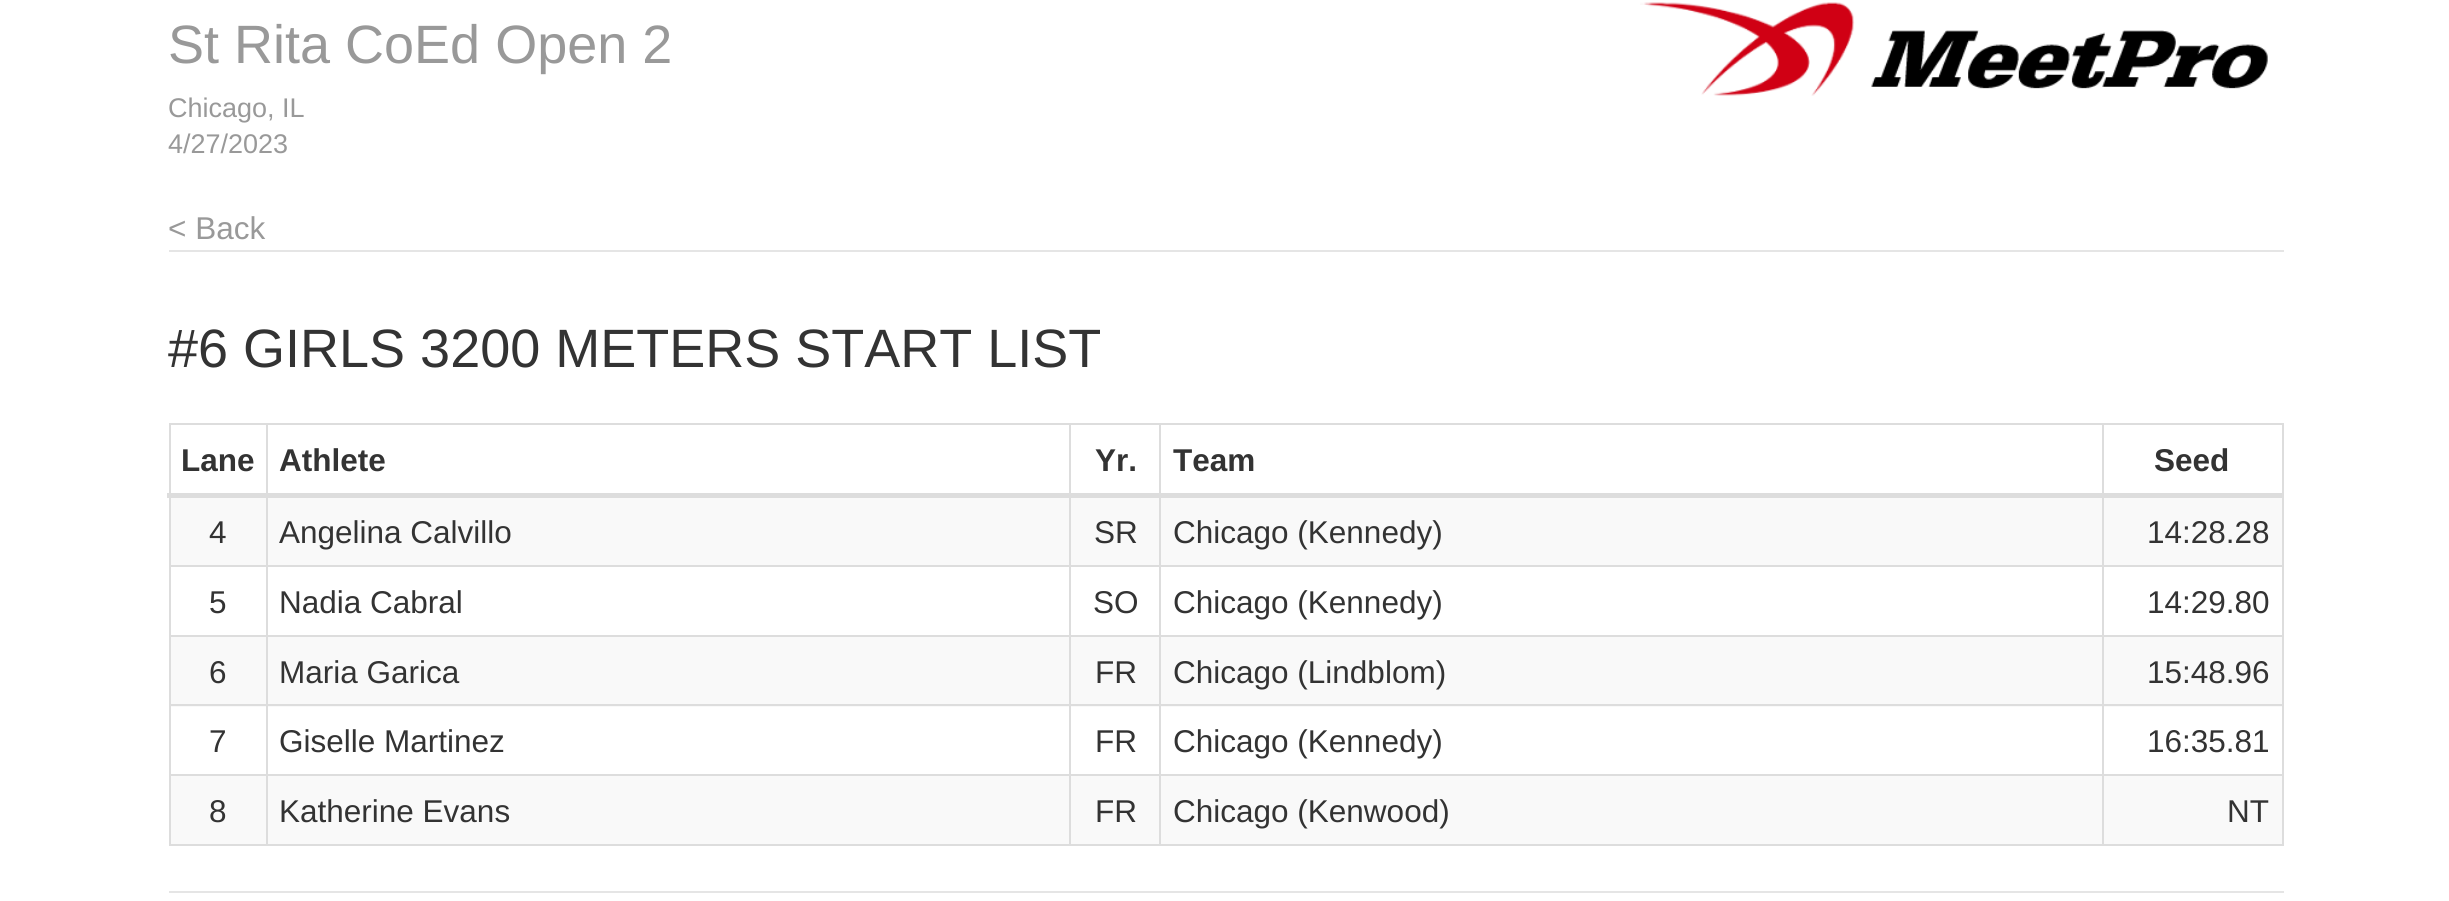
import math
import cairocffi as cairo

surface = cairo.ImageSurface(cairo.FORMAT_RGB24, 2449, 901)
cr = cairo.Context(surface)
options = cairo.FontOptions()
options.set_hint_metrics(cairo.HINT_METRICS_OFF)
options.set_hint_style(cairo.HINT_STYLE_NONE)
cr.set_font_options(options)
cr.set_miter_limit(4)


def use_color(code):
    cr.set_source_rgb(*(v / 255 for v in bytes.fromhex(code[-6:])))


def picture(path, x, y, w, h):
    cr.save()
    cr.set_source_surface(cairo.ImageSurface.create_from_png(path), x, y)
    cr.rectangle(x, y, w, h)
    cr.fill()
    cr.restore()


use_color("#ffffff")
cr.paint()
use_color("#e5e5e5")
cr.rectangle(169, 250, 2115, 2)
cr.fill()
cr.select_font_face("Liberation Sans")
cr.set_font_size(54)
use_color("#999999")
cr.move_to(168, 63)
cr.show_text("St Rita CoEd Open 2")
cr.set_font_size(27)
cr.move_to(168, 117)
cr.show_text("Chicago, IL")
cr.move_to(168, 153)
cr.show_text("4/27/2023")
picture("img1.png", 1640, 2, 628, 94)
cr.set_font_size(31.5)
cr.move_to(168, 239)
cr.show_text("< Back")
cr.set_font_size(54)
use_color("#333333")
cr.move_to(168, 367)
cr.show_text("#6 GIRLS 3200 METERS START LIST")
use_color("#dddddd")
cr.rectangle(169, 423, 2115, 2)
cr.fill()
cr.rectangle(2282, 423, 2, 423)
cr.fill()
cr.rectangle(169, 844, 2115, 2)
cr.fill()
cr.rectangle(169, 423, 2, 423)
cr.fill()
cr.select_font_face("Liberation Sans", cairo.FONT_SLANT_NORMAL, cairo.FONT_WEIGHT_BOLD)
cr.set_font_size(31.5)
use_color("#333333")
cr.move_to(181, 471)
cr.show_text("Lane")
cr.move_to(279, 471)
cr.show_text("Athlete")
cr.move_to(1095, 471)
cr.show_text("Yr.")
cr.move_to(1173, 471)
cr.show_text("Team")
use_color("#dddddd")
cr.rectangle(2102, 565, 182, 2)
cr.fill()
cr.rectangle(2102, 635, 182, 2)
cr.fill()
use_color("#f9f9f9")
cr.rectangle(1161, 637, 941, 70)
cr.fill()
cr.rectangle(2104, 637, 178, 70)
cr.fill()
use_color("#dddddd")
cr.rectangle(2102, 704, 182, 2)
cr.fill()
cr.rectangle(2102, 774, 182, 2)
cr.fill()
cr.rectangle(2102, 774, 2, 72)
cr.fill()
cr.rectangle(1159, 774, 945, 2)
cr.fill()
cr.rectangle(2102, 704, 2, 72)
cr.fill()
cr.rectangle(1159, 704, 945, 2)
cr.fill()
cr.rectangle(2102, 635, 2, 72)
cr.fill()
cr.rectangle(1159, 635, 945, 2)
cr.fill()
cr.rectangle(2102, 565, 2, 72)
cr.fill()
cr.rectangle(1159, 565, 945, 2)
cr.fill()
use_color("#f9f9f9")
cr.rectangle(1071, 637, 88, 70)
cr.fill()
use_color("#dddddd")
cr.rectangle(1159, 774, 2, 72)
cr.fill()
cr.rectangle(1069, 774, 92, 2)
cr.fill()
cr.rectangle(1159, 704, 2, 72)
cr.fill()
cr.rectangle(1069, 704, 92, 2)
cr.fill()
cr.rectangle(1159, 635, 2, 72)
cr.fill()
cr.rectangle(1069, 635, 92, 2)
cr.fill()
cr.rectangle(1159, 565, 2, 72)
cr.fill()
cr.rectangle(1069, 565, 92, 2)
cr.fill()
use_color("#f9f9f9")
cr.rectangle(268, 637, 801, 70)
cr.fill()
use_color("#dddddd")
cr.rectangle(1069, 774, 2, 72)
cr.fill()
cr.rectangle(266, 774, 805, 2)
cr.fill()
cr.rectangle(1069, 704, 2, 72)
cr.fill()
cr.rectangle(266, 704, 805, 2)
cr.fill()
cr.rectangle(1069, 635, 2, 72)
cr.fill()
cr.rectangle(266, 635, 805, 2)
cr.fill()
cr.rectangle(1069, 565, 2, 72)
cr.fill()
cr.rectangle(266, 565, 805, 2)
cr.fill()
use_color("#f9f9f9")
cr.rectangle(171, 637, 95, 70)
cr.fill()
use_color("#dddddd")
cr.rectangle(266, 774, 2, 72)
cr.fill()
cr.rectangle(169, 774, 99, 2)
cr.fill()
cr.rectangle(266, 704, 2, 72)
cr.fill()
cr.rectangle(169, 704, 99, 2)
cr.fill()
cr.rectangle(266, 635, 2, 72)
cr.fill()
cr.rectangle(169, 635, 99, 2)
cr.fill()
cr.rectangle(266, 565, 2, 72)
cr.fill()
cr.rectangle(169, 565, 99, 2)
cr.fill()
cr.rectangle(266, 423, 2, 144)
cr.fill()
cr.rectangle(1069, 423, 2, 144)
cr.fill()
cr.rectangle(1159, 423, 2, 144)
cr.fill()
cr.rectangle(2102, 423, 2, 144)
cr.fill()
cr.rectangle(167, 493, 2117, 5)
cr.fill()
use_color("#333333")
cr.move_to(2154, 471)
cr.show_text("Seed")
use_color("#f9f9f9")
cr.rectangle(171, 498, 95, 67)
cr.fill()
cr.select_font_face("Liberation Sans")
use_color("#333333")
cr.move_to(209, 543)
cr.show_text("4")
use_color("#f9f9f9")
cr.rectangle(268, 498, 801, 67)
cr.fill()
use_color("#333333")
cr.move_to(279, 543)
cr.show_text("Angelina Calvillo")
use_color("#f9f9f9")
cr.rectangle(1071, 498, 88, 67)
cr.fill()
use_color("#333333")
cr.move_to(1094, 543)
cr.show_text("SR")
use_color("#f9f9f9")
cr.rectangle(1161, 498, 941, 67)
cr.fill()
use_color("#333333")
cr.move_to(1173, 543)
cr.show_text("Chicago (Kennedy)")
use_color("#f9f9f9")
cr.rectangle(2104, 498, 178, 67)
cr.fill()
use_color("#333333")
cr.move_to(2147, 543)
cr.show_text("14:28.28")
cr.move_to(209, 613)
cr.show_text("5")
cr.move_to(279, 613)
cr.show_text("Nadia Cabral")
cr.move_to(1093, 613)
cr.show_text("SO")
cr.move_to(1173, 613)
cr.show_text("Chicago (Kennedy)")
cr.move_to(2147, 613)
cr.show_text("14:29.80")
cr.move_to(209, 683)
cr.show_text("6")
cr.move_to(279, 683)
cr.show_text("Maria Garica")
cr.move_to(1095, 683)
cr.show_text("FR")
cr.move_to(1173, 683)
cr.show_text("Chicago (Lindblom)")
cr.move_to(2147, 683)
cr.show_text("15:48.96")
cr.move_to(209, 752)
cr.show_text("7")
cr.move_to(279, 752)
cr.show_text("Giselle Martinez")
cr.move_to(1095, 752)
cr.show_text("FR")
cr.move_to(1173, 752)
cr.show_text("Chicago (Kennedy)")
cr.move_to(2147, 752)
cr.show_text("16:35.81")
use_color("#f9f9f9")
cr.rectangle(171, 776, 95, 68)
cr.fill()
use_color("#333333")
cr.move_to(209, 822)
cr.show_text("8")
use_color("#f9f9f9")
cr.rectangle(268, 776, 801, 68)
cr.fill()
use_color("#333333")
cr.move_to(279, 822)
cr.show_text("Katherine Evans")
use_color("#f9f9f9")
cr.rectangle(1071, 776, 88, 68)
cr.fill()
use_color("#333333")
cr.move_to(1095, 822)
cr.show_text("FR")
use_color("#f9f9f9")
cr.rectangle(1161, 776, 941, 68)
cr.fill()
use_color("#333333")
cr.move_to(1173, 822)
cr.show_text("Chicago (Kenwood)")
use_color("#f9f9f9")
cr.rectangle(2104, 776, 178, 68)
cr.fill()
use_color("#333333")
cr.move_to(2227, 822)
cr.show_text("NT")
use_color("#e5e5e5")
cr.rectangle(169, 891, 2115, 2)
cr.fill()
surface.write_to_png("result.png")
